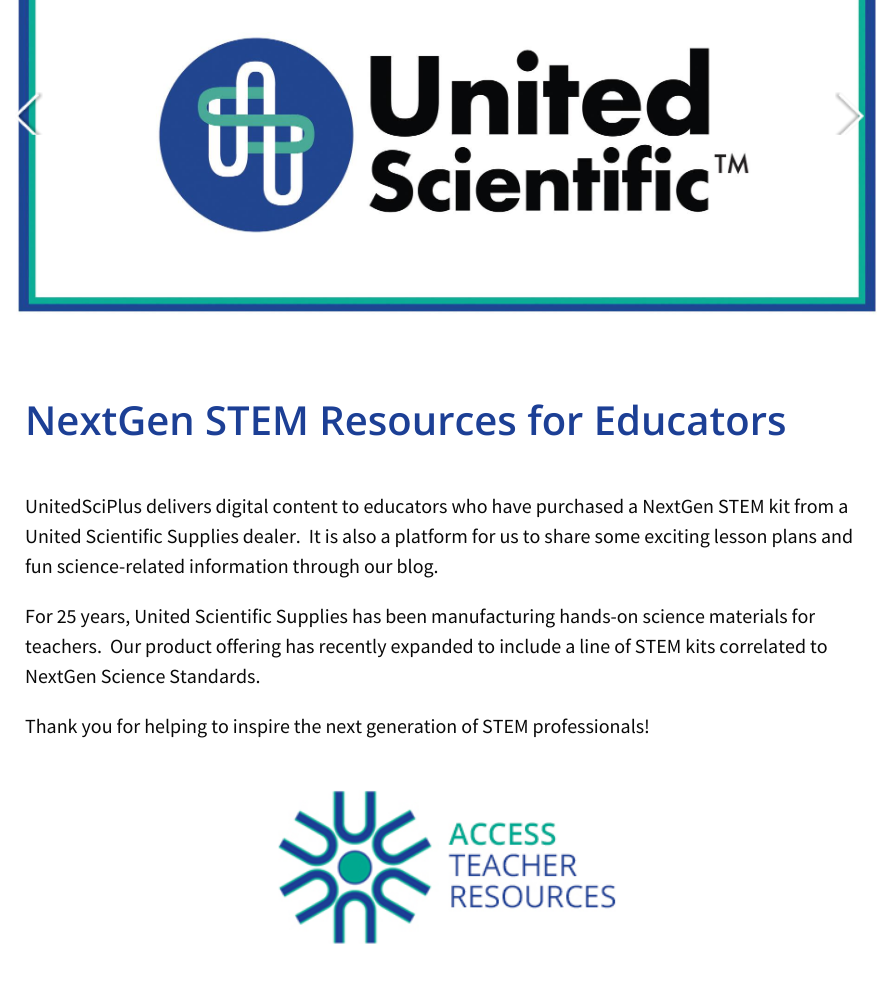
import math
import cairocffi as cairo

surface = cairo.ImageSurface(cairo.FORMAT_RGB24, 891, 991)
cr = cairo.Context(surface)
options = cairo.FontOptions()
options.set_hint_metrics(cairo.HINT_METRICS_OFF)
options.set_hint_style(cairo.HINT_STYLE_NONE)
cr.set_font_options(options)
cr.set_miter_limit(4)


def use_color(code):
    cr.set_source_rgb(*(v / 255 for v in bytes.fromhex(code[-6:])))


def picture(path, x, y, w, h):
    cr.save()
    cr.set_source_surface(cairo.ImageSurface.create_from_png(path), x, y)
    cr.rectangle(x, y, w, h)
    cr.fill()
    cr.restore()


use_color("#ffffff")
cr.paint()
picture("img1.png", 16, 0, 861, 315)
picture("img2.png", 15, 92, 28, 43)
picture("img3.png", 835, 92, 29, 43)
cr.select_font_face("Open Sans SemiBold")
cr.set_font_size(40)
use_color("#1c3f95")
cr.move_to(25, 435)
cr.show_text("NextGen STEM Resources for Educators")
cr.select_font_face("Source Sans Pro")
cr.set_font_size(20)
use_color("#090909")
cr.move_to(25, 513)
cr.show_text("UnitedSciPlus delivers digital content to educators who have purchased a NextGen STEM kit from a")
cr.move_to(25, 543)
cr.show_text("United Scientific Supplies dealer.  It is also a platform for us to share some exciting lesson plans and")
cr.move_to(25, 573)
cr.show_text("fun science-related information through our blog.")
cr.move_to(25, 623)
cr.show_text("For 25 years, United Scientific Supplies has been manufacturing hands-on science materials for")
cr.move_to(25, 653)
cr.show_text("teachers.  Our product offering has recently expanded to include a line of STEM kits correlated to")
cr.move_to(25, 683)
cr.show_text("NextGen Science Standards.")
cr.move_to(25, 733)
cr.show_text("Thank you for helping to inspire the next generation of STEM professionals!")
picture("img4.png", 278, 790, 338, 154)
surface.write_to_png("result.png")
